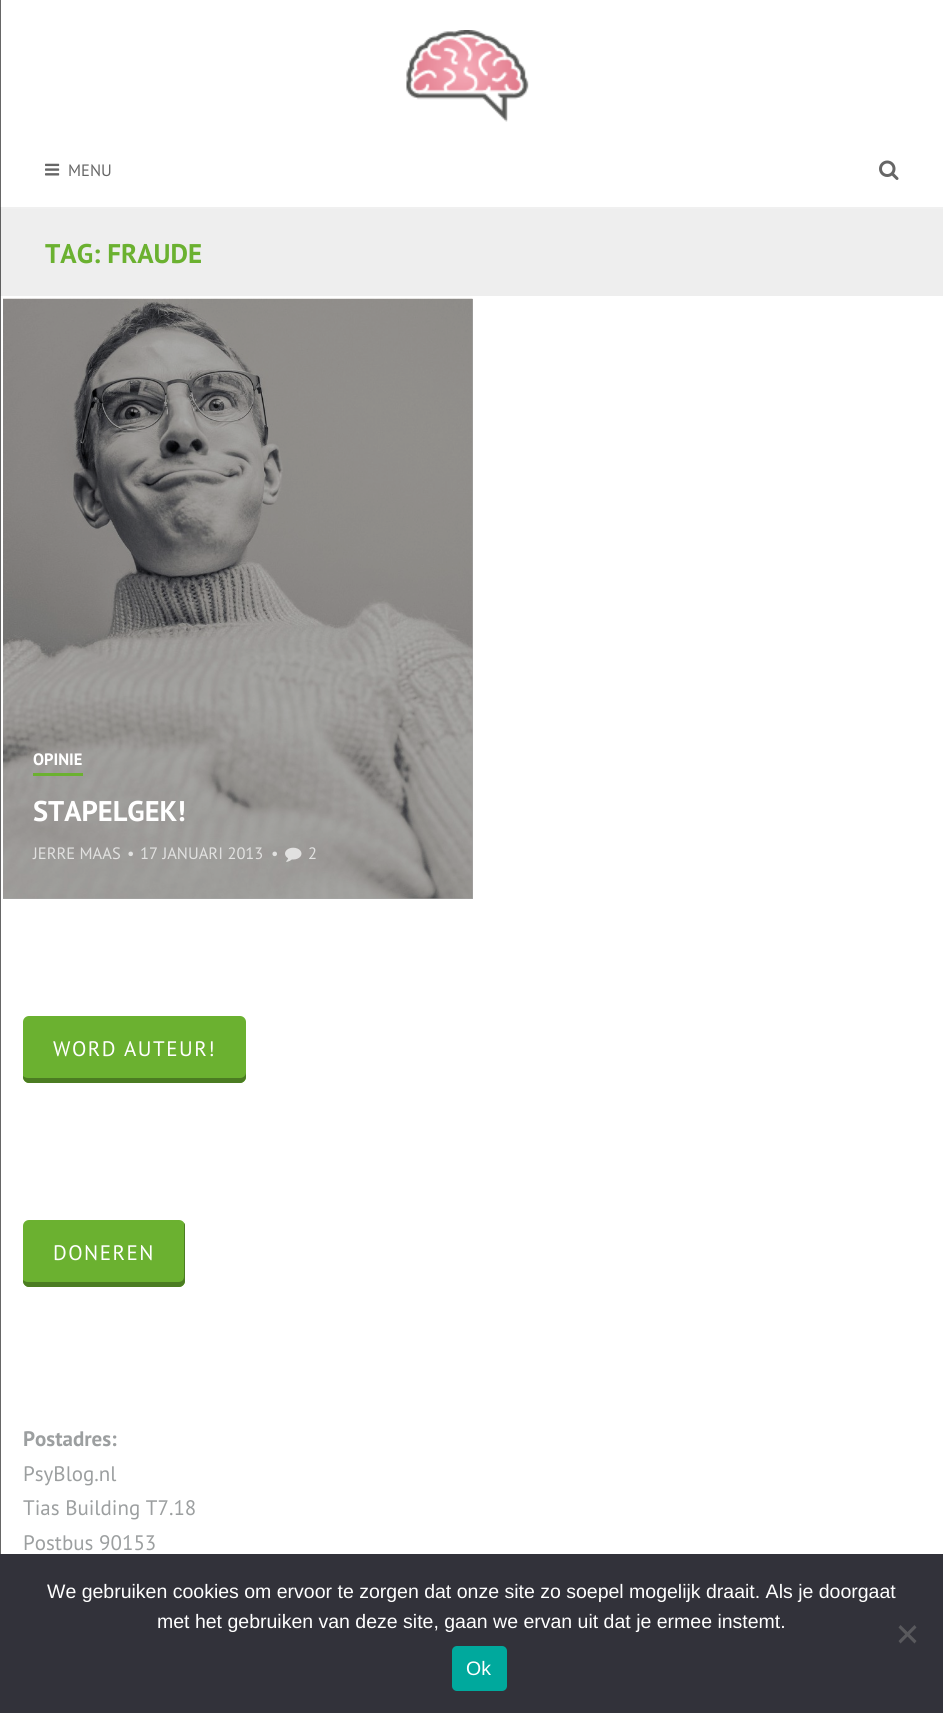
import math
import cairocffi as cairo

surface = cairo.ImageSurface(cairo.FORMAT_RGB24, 943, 1713)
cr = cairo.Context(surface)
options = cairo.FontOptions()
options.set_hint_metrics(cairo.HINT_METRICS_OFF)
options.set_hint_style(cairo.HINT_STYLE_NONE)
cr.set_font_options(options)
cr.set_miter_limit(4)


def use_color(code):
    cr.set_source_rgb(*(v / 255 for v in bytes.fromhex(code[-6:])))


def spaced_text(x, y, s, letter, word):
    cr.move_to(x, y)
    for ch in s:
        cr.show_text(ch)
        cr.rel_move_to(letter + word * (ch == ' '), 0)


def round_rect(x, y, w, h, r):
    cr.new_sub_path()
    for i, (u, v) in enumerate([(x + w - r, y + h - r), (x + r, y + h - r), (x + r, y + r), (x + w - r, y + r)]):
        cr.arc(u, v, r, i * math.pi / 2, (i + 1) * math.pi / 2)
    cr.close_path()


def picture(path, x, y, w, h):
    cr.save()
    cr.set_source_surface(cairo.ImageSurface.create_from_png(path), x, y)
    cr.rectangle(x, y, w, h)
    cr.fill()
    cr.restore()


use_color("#ffffff")
cr.paint()
use_color("#666666")
cr.rectangle(0, 0, 1, 1554)
cr.fill()
picture("img1.png", 406, 30, 123, 92)
picture("img2.png", 45, 163, 15, 13)
cr.select_font_face("PT Sans")
cr.set_font_size(16.5)
cr.move_to(68, 176)
cr.show_text("MENU")
picture("img3.png", 879, 160, 20, 20)
use_color("#eeeeee")
cr.rectangle(1, 209, 942, 87)
cr.fill()
use_color("#5f5f5f")
cr.rectangle(0, 207, 1, 89)
cr.fill()
use_color("#f0f0f0")
cr.rectangle(0, 207, 943, 2)
cr.fill()
use_color("#606060")
cr.rectangle(0, 207, 1, 2)
cr.fill()
cr.select_font_face("PT Sans", cairo.FONT_SLANT_NORMAL, cairo.FONT_WEIGHT_BOLD)
cr.set_font_size(27)
use_color("#6bb130")
cr.move_to(45, 263)
cr.show_text("TAG: FRAUDE")
use_color("#a7a7a7")
cr.rectangle(3, 299, 470, 600)
cr.fill()
picture("img4.png", 3, 298, 470, 601)
use_color("#6bb130")
cr.rectangle(33, 773, 50, 3)
cr.fill()
cr.set_font_size(16.5)
use_color("#ffffff")
cr.move_to(33, 765)
cr.show_text("OPINIE")
cr.set_font_size(28.5)
cr.move_to(33, 821)
cr.show_text("STAPELGEK!")
cr.select_font_face("PT Sans")
cr.set_font_size(16.5)
use_color("#e1e1e0")
cr.move_to(33, 859)
cr.show_text("JERRE MAAS")
cr.move_to(127, 859)
cr.show_text("•")
cr.move_to(140, 859)
cr.show_text("17 JANUARI 2013")
cr.move_to(271, 859)
cr.show_text("•")
picture("img5.png", 285, 847, 17, 15)
cr.move_to(308, 859)
cr.show_text("2")
use_color("#6bb130")
round_rect(23, 1016, 223, 67, 6)
cr.fill()
use_color("#4b7c22")
cr.new_path()
cr.move_to(23, 1076)
cr.line_to(23, 1077)
cr.curve_to(23, 1080, 26, 1083, 29, 1083)
cr.line_to(240, 1083)
cr.curve_to(243, 1083, 246, 1080, 246, 1077)
cr.line_to(246, 1072)
cr.curve_to(246, 1076, 243, 1078, 240, 1078)
cr.line_to(28, 1078)
cr.curve_to(26, 1078, 24, 1077, 23, 1076)
cr.close_path()
cr.fill()
cr.set_font_size(21)
use_color("#ffffff")
spaced_text(53, 1056, "WORD AUTEUR!", 1.5, 0)
use_color("#6bb130")
round_rect(23, 1220, 162, 67, 6)
cr.fill()
use_color("#4b7c22")
cr.new_path()
cr.move_to(23, 1280)
cr.line_to(23, 1281)
cr.curve_to(23, 1284, 26, 1287, 29, 1287)
cr.line_to(179, 1287)
cr.curve_to(182, 1287, 185, 1284, 185, 1281)
cr.line_to(185, 1226)
cr.curve_to(185, 1225, 185, 1224, 184, 1223)
cr.line_to(184, 1276)
cr.curve_to(184, 1280, 182, 1282, 178, 1282)
cr.line_to(28, 1282)
cr.curve_to(26, 1282, 24, 1281, 23, 1280)
cr.close_path()
cr.fill()
use_color("#ffffff")
spaced_text(53, 1260, "DONEREN", 1.5, 0)
cr.select_font_face("PT Sans", cairo.FONT_SLANT_NORMAL, cairo.FONT_WEIGHT_BOLD)
use_color("#9c9fa0")
cr.move_to(23, 1446)
cr.show_text("Postadres:")
cr.select_font_face("PT Sans")
cr.move_to(23, 1481)
cr.show_text("PsyBlog.nl")
cr.move_to(23, 1515)
cr.show_text("Tias Building T7.18")
cr.move_to(23, 1550)
cr.show_text("Postbus 90153")
use_color("#32323a")
cr.rectangle(0, 1554, 943, 159)
cr.fill()
cr.select_font_face("Liberation Sans")
cr.set_font_size(19.5)
use_color("#ffffff")
cr.move_to(47, 1598)
cr.show_text("We gebruiken cookies om ervoor te zorgen dat onze site zo soepel mogelijk draait. Als je doorgaat")
cr.move_to(157, 1628)
cr.show_text("met het gebruiken van deze site, gaan we ervan uit dat je ermee instemt.")
use_color("#59595d")
cr.new_path()
cr.move_to(914.5, 1625)
cr.line_to(916.5, 1627.5)
cr.line_to(900.5, 1643.5)
cr.line_to(898.5, 1641)
cr.close_path()
cr.fill()
cr.new_path()
cr.move_to(898.5, 1627.5)
cr.line_to(900.5, 1625)
cr.line_to(916.5, 1641)
cr.line_to(914.5, 1643.5)
cr.close_path()
cr.fill()
use_color("#00a99d")
round_rect(452, 1646, 55, 45, 5)
cr.fill()
use_color("#ffffff")
cr.move_to(466, 1675)
cr.show_text("Ok")
surface.write_to_png("result.png")
